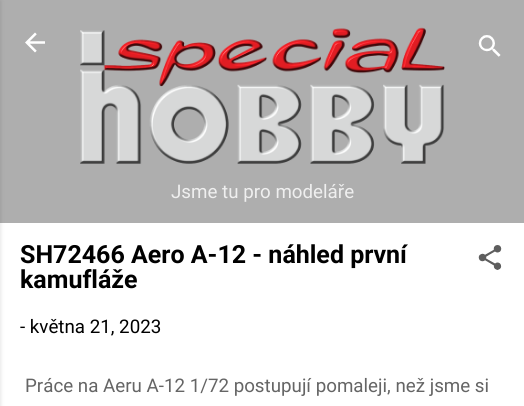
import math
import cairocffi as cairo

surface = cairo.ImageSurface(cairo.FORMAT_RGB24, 524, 406)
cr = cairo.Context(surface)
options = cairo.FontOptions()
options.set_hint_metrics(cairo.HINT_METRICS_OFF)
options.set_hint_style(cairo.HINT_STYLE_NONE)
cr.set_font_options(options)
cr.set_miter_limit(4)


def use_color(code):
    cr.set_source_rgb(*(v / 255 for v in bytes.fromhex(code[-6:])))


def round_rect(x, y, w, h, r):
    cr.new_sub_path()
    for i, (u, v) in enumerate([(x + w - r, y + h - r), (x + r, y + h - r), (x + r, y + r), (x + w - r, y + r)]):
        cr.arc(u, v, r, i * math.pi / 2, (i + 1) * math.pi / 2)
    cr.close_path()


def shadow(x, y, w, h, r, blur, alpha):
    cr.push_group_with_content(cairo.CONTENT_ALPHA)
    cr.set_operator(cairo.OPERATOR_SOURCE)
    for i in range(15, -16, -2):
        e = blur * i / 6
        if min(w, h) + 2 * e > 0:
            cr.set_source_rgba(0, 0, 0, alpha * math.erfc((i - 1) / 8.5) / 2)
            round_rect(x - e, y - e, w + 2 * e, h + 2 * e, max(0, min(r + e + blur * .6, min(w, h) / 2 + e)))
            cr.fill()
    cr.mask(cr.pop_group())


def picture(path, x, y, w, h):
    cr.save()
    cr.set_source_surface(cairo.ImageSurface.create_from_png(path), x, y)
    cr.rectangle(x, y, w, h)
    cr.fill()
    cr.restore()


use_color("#aeaeae")
cr.paint()
use_color("#ffffff")
cr.rectangle(0, 223, 524, 183)
cr.fill()
use_color("#000000")
shadow(-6, 1, 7, 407, 0, 2, 0.1)
picture("img1.png", 25, 32, 20, 21)
picture("img2.png", 478, 35, 23, 22)
picture("img3.png", 80, 27, 365, 137)
cr.select_font_face("Roboto")
cr.set_font_size(18.75)
use_color("#efefef")
cr.move_to(171, 198)
cr.show_text("Jsme tu pro modeláře")
cr.select_font_face("Roboto", cairo.FONT_SLANT_NORMAL, cairo.FONT_WEIGHT_BOLD)
cr.set_font_size(25)
use_color("#000000")
cr.move_to(20, 263)
cr.show_text("SH72466 Aero A-12 - náhled první")
cr.move_to(20, 288)
cr.show_text("kamufláže")
picture("img4.png", 478, 245, 24, 25)
cr.select_font_face("Roboto")
cr.set_font_size(18.75)
cr.move_to(20, 333)
cr.show_text("- května 21, 2023")
use_color("#656565")
cr.move_to(25, 392)
cr.show_text("Práce na Aeru A-12 1/72 postupují pomaleji, než jsme si")
surface.write_to_png("result.png")
